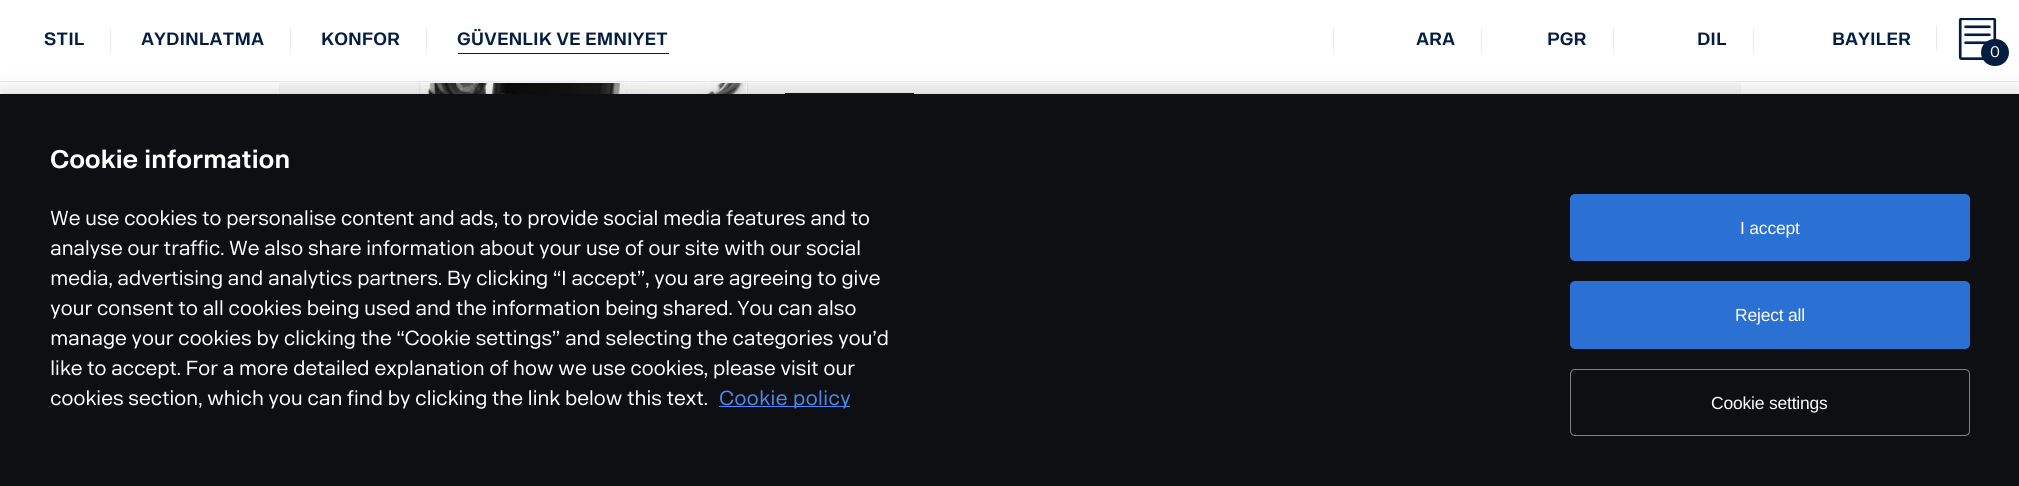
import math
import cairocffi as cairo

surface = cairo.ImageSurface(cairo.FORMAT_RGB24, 2019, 486)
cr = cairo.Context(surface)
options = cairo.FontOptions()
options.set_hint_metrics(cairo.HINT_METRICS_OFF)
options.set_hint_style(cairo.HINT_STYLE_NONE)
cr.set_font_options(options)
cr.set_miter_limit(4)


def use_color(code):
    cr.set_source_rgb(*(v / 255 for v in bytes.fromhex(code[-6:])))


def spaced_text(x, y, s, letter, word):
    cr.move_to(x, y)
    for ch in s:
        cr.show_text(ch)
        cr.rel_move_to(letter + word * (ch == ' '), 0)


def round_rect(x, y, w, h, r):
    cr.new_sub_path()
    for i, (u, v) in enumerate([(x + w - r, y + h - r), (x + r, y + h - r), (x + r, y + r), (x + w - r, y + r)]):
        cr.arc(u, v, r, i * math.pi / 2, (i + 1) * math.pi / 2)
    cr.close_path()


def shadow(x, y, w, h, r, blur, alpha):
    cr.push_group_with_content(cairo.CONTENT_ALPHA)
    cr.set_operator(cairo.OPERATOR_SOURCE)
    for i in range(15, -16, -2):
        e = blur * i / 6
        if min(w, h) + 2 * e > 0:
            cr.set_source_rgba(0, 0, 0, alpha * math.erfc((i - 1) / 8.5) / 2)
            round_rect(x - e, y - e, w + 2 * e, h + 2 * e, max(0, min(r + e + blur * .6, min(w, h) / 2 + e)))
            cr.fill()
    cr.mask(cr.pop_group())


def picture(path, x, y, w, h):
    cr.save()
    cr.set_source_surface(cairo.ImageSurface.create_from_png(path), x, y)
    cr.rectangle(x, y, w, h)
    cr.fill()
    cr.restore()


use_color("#ffffff")
cr.paint()
use_color("#f7f7f7")
cr.rectangle(279, 83, 1462, 11)
cr.fill()
use_color("#ffffff")
cr.rectangle(746, 83, 1, 11)
cr.fill()
cr.rectangle(419.5, -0.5, 328, 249)
use_color("#ebebeb")
cr.set_line_width(1)
cr.stroke()
picture("img1.png", 420, 83, 326, 11)
use_color("#041e42")
cr.rectangle(785, 93, 129, 1)
cr.fill()
use_color("#ffffff")
cr.rectangle(419, 0, 329, 83)
cr.fill()
use_color("#ebebeb")
cr.rectangle(0, 81, 2019, 1)
cr.fill()
cr.select_font_face("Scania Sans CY", cairo.FONT_SLANT_NORMAL, cairo.FONT_WEIGHT_BOLD)
cr.set_font_size(17.5)
use_color("#041e42")
cr.move_to(44, 45)
cr.show_text("STIL")
use_color("#ebebeb")
cr.rectangle(110, 28, 1, 25)
cr.fill()
use_color("#041e42")
cr.move_to(141, 45)
cr.show_text("AYDINLATMA")
use_color("#ebebeb")
cr.rectangle(290, 28, 1, 25)
cr.fill()
use_color("#041e42")
cr.move_to(321, 45)
cr.show_text("KONFOR")
use_color("#ebebeb")
cr.rectangle(426, 28, 1, 25)
cr.fill()
use_color("#041e42")
cr.move_to(457, 45)
cr.show_text("GÜVENLIK VE EMNIYET")
cr.rectangle(458, 53, 211, 1)
cr.fill()
use_color("#ebebeb")
cr.rectangle(1333, 28, 1, 25)
cr.fill()
use_color("#041e42")
cr.move_to(1416, 45)
cr.show_text("ARA")
use_color("#ebebeb")
cr.rectangle(1481, 28, 1, 25)
cr.fill()
use_color("#041e42")
cr.move_to(1547, 45)
cr.show_text("PGR")
use_color("#ebebeb")
cr.rectangle(1613, 28, 1, 25)
cr.fill()
use_color("#041e42")
cr.move_to(1697, 45)
cr.show_text("DIL")
use_color("#ebebeb")
cr.rectangle(1753, 28, 1, 25)
cr.fill()
use_color("#041e42")
cr.move_to(1832, 45)
cr.show_text("BAYILER")
use_color("#ebebeb")
cr.rectangle(1936, 26, 1, 25)
cr.fill()
picture("img2.png", 1958, 18, 39, 42)
use_color("#041e42")
round_rect(1982.5, 40.5, 25, 24, 12)
cr.fill_preserve()
cr.set_line_width(3)
cr.stroke()
cr.select_font_face("Scania Sans CY")
cr.set_font_size(15)
use_color("#ffffff")
cr.move_to(1990, 57)
cr.show_text("0")
use_color("#000000")
shadow(0, 94, 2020, 392, 0, 11, 0.2)
use_color("#0d0f13")
cr.rectangle(0, 94, 2019, 392)
cr.fill()
cr.select_font_face("Scania Sans CY", cairo.FONT_SLANT_NORMAL, cairo.FONT_WEIGHT_BOLD)
cr.set_font_size(25)
use_color("#ffffff")
spaced_text(50, 168, "Cookie information", -0.25, 0)
cr.select_font_face("Scania Sans CY")
cr.set_font_size(20)
spaced_text(50, 225, "We use cookies to personalise content and ads, to provide social media features and to", -0.4, 0)
spaced_text(50, 255, "analyse our traffic. We also share information about your use of our site with our social", -0.4, 0)
spaced_text(50, 285, "media, advertising and analytics partners. By clicking “I accept”, you are agreeing to give", -0.4, 0)
spaced_text(50, 315, "your consent to all cookies being used and the information being shared. You can also", -0.4, 0)
spaced_text(50, 345, "manage your cookies by clicking the “Cookie settings” and selecting the categories you’d", -0.4, 0)
spaced_text(50, 375, "like to accept. For a more detailed explanation of how we use cookies, please visit our", -0.4, 0)
spaced_text(50, 405, "cookies section, which you can find by clicking the link below this text.", -0.4, 0)
use_color("#4a89f3")
cr.rectangle(719, 406, 131, 1)
cr.fill()
cr.move_to(719, 405)
cr.show_text("Cookie policy")
use_color("#2b70d3")
round_rect(1570, 194, 400, 67, 5)
cr.fill()
cr.select_font_face("Liberation Sans")
cr.set_font_size(17.5)
use_color("#ffffff")
spaced_text(1740, 234, "I accept", -0.2, 0)
use_color("#2b70d3")
round_rect(1570, 281, 400, 68, 5)
cr.fill()
use_color("#ffffff")
spaced_text(1735, 321, "Reject all", -0.2, 0)
round_rect(1570.5, 369.5, 399, 66, 4.5)
use_color("#818284")
cr.set_line_width(1)
cr.stroke()
use_color("#ffffff")
spaced_text(1711, 409, "Cookie settings", -0.2, 0)
surface.write_to_png("result.png")
